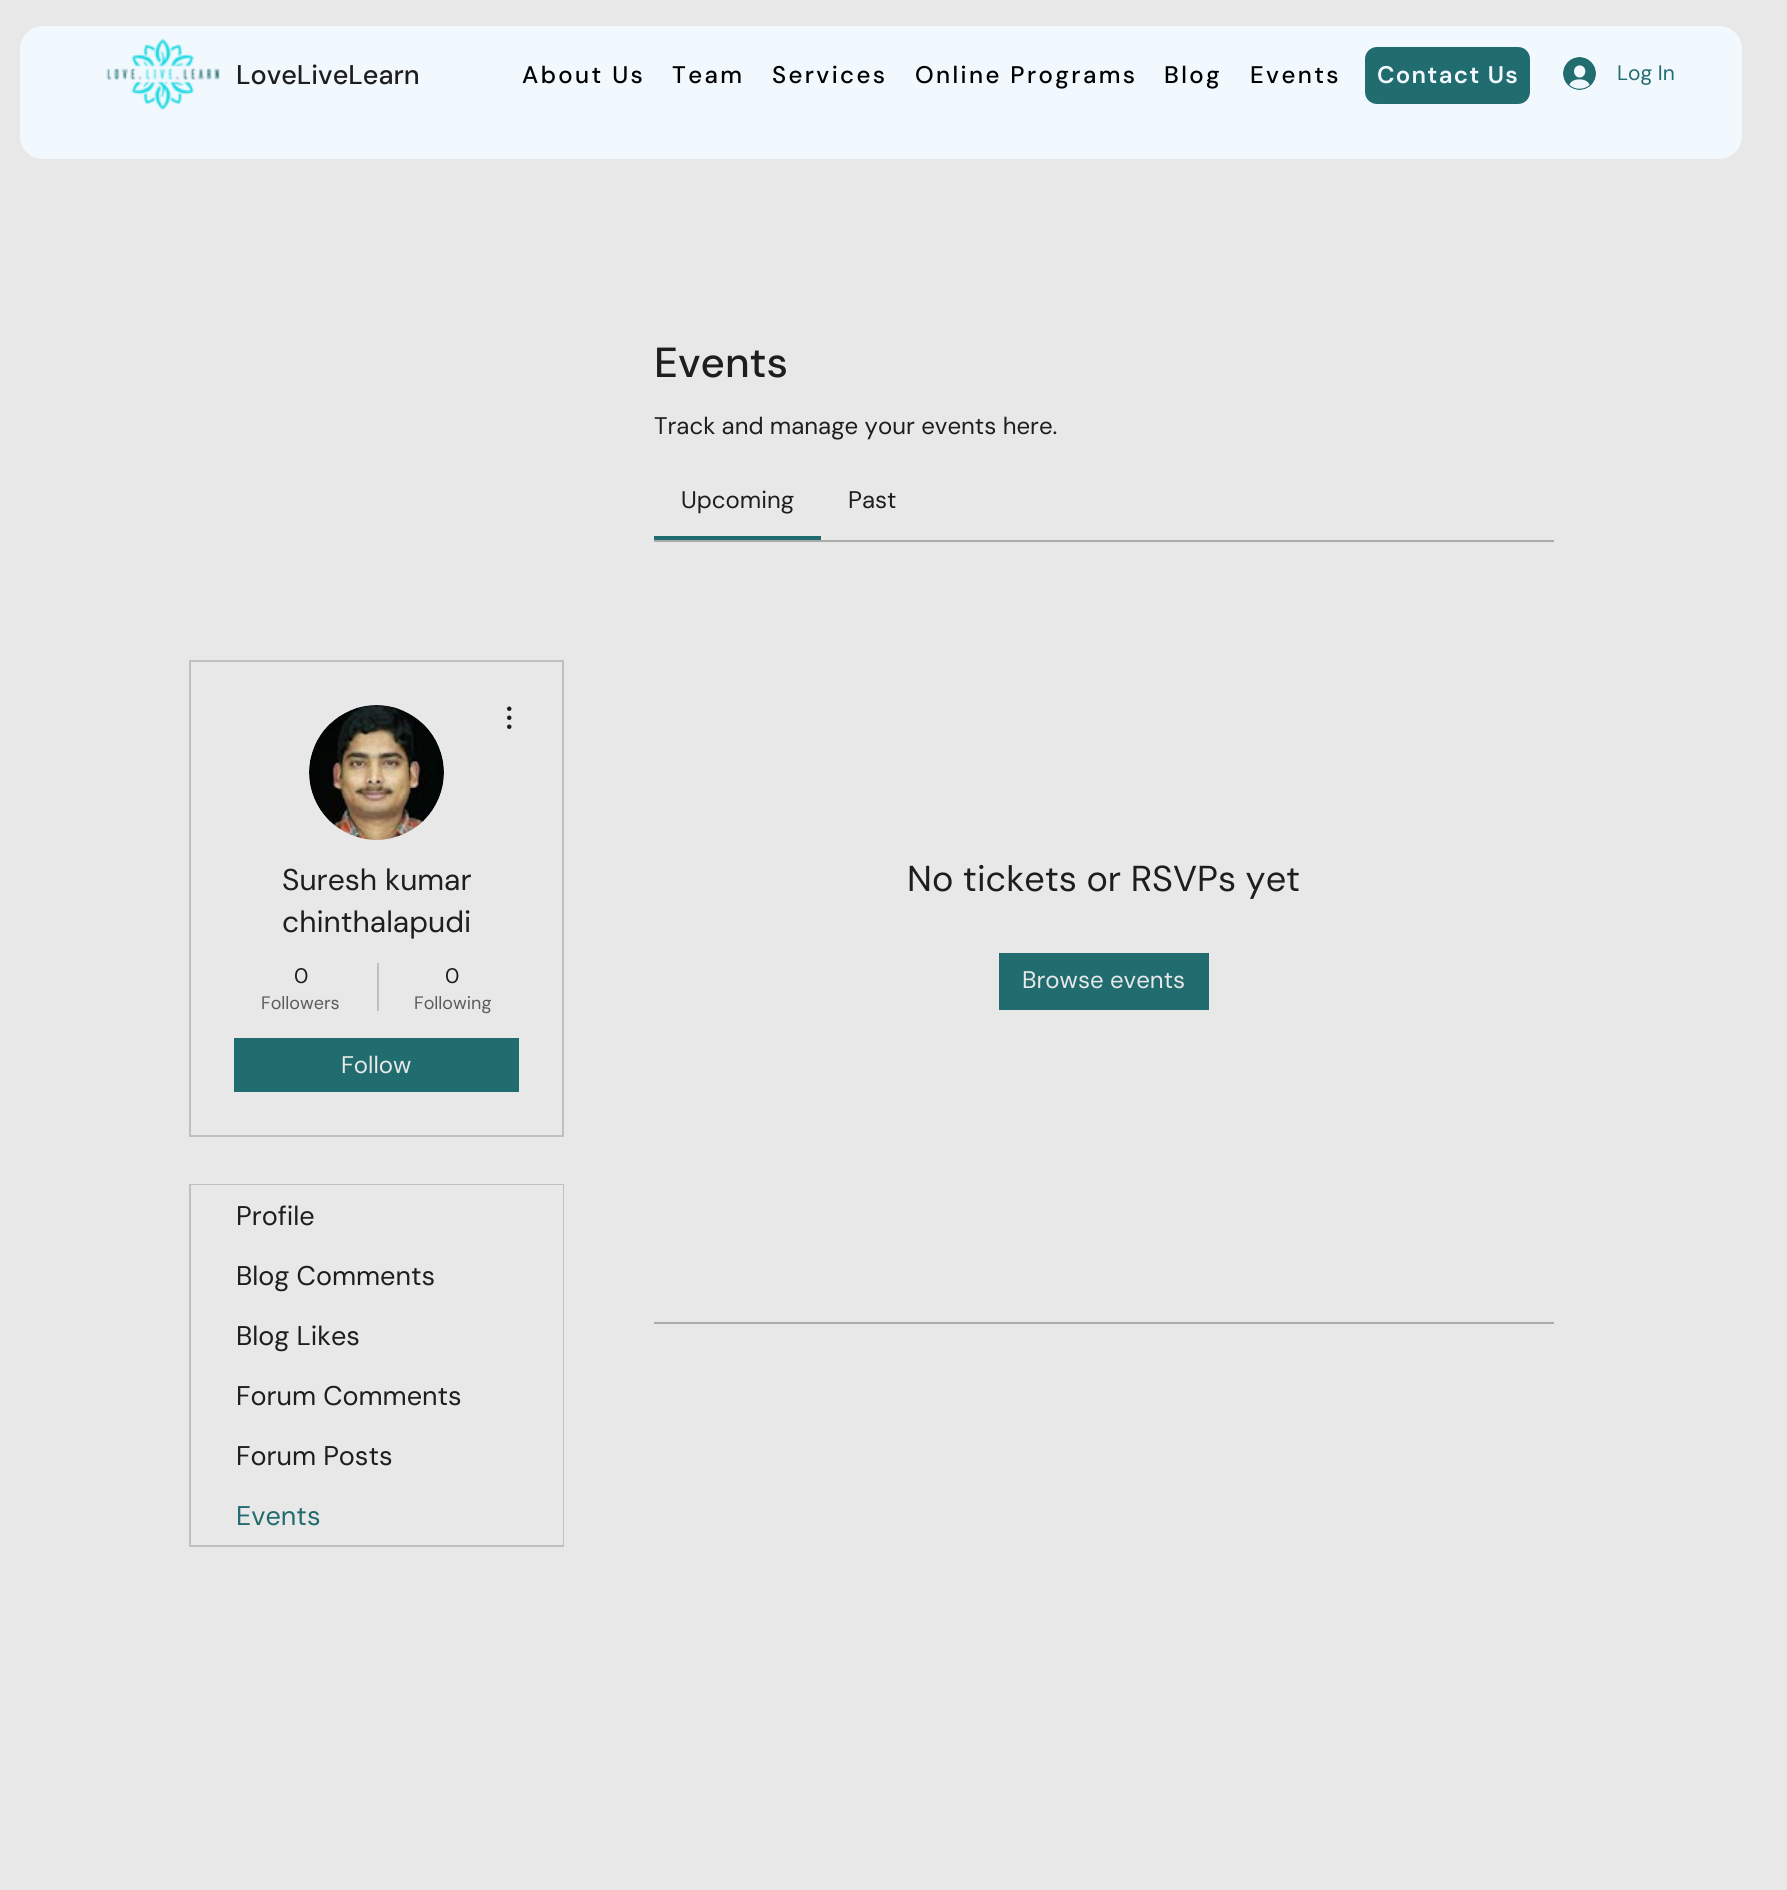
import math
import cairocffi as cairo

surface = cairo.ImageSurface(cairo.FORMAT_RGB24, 1787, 1890)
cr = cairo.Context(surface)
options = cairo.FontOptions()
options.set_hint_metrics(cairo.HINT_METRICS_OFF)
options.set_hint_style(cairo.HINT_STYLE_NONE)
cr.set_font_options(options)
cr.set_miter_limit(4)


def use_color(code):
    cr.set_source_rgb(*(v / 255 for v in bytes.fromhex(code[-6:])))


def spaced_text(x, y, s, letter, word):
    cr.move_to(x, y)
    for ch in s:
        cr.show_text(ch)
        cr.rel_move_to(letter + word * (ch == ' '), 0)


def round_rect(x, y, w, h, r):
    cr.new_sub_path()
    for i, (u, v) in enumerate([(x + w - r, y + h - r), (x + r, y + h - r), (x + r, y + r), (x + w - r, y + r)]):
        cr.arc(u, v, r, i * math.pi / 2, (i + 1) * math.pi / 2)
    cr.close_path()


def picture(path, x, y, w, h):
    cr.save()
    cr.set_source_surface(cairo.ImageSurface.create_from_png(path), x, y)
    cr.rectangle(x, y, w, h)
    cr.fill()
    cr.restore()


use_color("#e8e8e8")
cr.paint()
use_color("#f1f8fe")
round_rect(20, 26, 1722, 133, 23)
cr.fill()
picture("img1.png", 106, 38, 114, 72)
cr.select_font_face("DM Sans Medium")
cr.set_font_size(27)
use_color("#1e1e1e")
cr.move_to(236, 84)
cr.show_text("LoveLiveLearn")
cr.set_font_size(24)
use_color("#000000")
spaced_text(522, 83, "About Us", 2.4, 0)
spaced_text(672, 83, "Team", 2.4, 0)
spaced_text(772, 83, "Services", 2.4, 0)
spaced_text(915, 83, "Online Programs", 2.4, 0)
spaced_text(1164, 83, "Blog", 2.4, 0)
spaced_text(1250, 83, "Events", 2.4, 0)
use_color("#216c6f")
round_rect(1365, 47, 165, 57, 12)
cr.fill()
cr.select_font_face("DM Sans SemiBold")
use_color("#f1f8fe")
spaced_text(1377, 83, "Contact Us", 1.25, 0)
picture("img2.png", 1563, 57, 33, 33)
cr.select_font_face("DM Sans")
cr.set_font_size(21)
use_color("#216c6f")
cr.move_to(1617, 80)
cr.show_text("Log In")
cr.select_font_face("DM Sans Medium")
cr.set_font_size(42)
use_color("#1e1e1e")
cr.move_to(654, 377)
cr.show_text("Events")
cr.select_font_face("DM Sans")
cr.set_font_size(24)
cr.move_to(654, 434)
cr.show_text("Track and manage your events here.")
use_color("#216c6f")
cr.rectangle(654, 536, 167, 4)
cr.fill()
use_color("#1e1e1e")
cr.move_to(681, 508)
cr.show_text("Upcoming")
cr.move_to(848, 508)
cr.show_text("Past")
use_color("#ababab")
cr.rectangle(654, 540, 900, 2)
cr.fill()
cr.set_font_size(36)
use_color("#1e1e1e")
cr.move_to(907, 891)
cr.show_text("No tickets or RSVPs yet")
use_color("#216c6f")
cr.rectangle(999, 953, 210, 57)
cr.fill()
cr.set_font_size(24)
use_color("#e8e8e8")
cr.move_to(1022, 988)
cr.show_text("Browse events")
use_color("#ababab")
cr.rectangle(654, 1322, 900, 2)
cr.fill()
cr.rectangle(190, 661, 373, 475)
use_color("#c0c0c0")
cr.stroke()
use_color("#d8d8d8")
cr.arc(376.5, 772.5, 67.5, 0, 2 * math.pi)
cr.fill()
picture("img3.png", 309, 705, 135, 135)
picture("img4.png", 507, 706, 5, 23)
cr.set_font_size(30)
use_color("#1e1e1e")
cr.move_to(282, 890)
cr.show_text("Suresh kumar")
cr.move_to(282, 932)
cr.show_text("chinthalapudi")
cr.set_font_size(21)
cr.move_to(294, 983)
cr.show_text("0")
cr.set_font_size(18)
use_color("#5b5b5b")
cr.move_to(261, 1009)
cr.show_text("Followers")
use_color("#c0c0c0")
cr.rectangle(377, 963, 2, 48)
cr.fill()
cr.set_font_size(21)
use_color("#1e1e1e")
cr.move_to(445, 983)
cr.show_text("0")
cr.set_font_size(18)
use_color("#5b5b5b")
cr.move_to(414, 1009)
cr.show_text("Following")
use_color("#216c6f")
cr.rectangle(234, 1038, 285, 54)
cr.fill()
cr.set_font_size(24)
use_color("#e8e8e8")
cr.move_to(341, 1073)
cr.show_text("Follow")
cr.rectangle(190, 1185, 373, 361)
use_color("#c0c0c0")
cr.stroke()
use_color("#e8e8e8")
cr.rectangle(191, 1185, 372, 60)
cr.fill()
cr.set_font_size(27)
use_color("#1e1e1e")
cr.move_to(236, 1225)
cr.show_text("Profile")
use_color("#e8e8e8")
cr.rectangle(562, 1245, 1, 300)
cr.fill()
use_color("#1e1e1e")
cr.move_to(236, 1285)
cr.show_text("Blog Comments")
cr.move_to(236, 1345)
cr.show_text("Blog Likes")
cr.move_to(236, 1405)
cr.show_text("Forum Comments")
cr.move_to(236, 1465)
cr.show_text("Forum Posts")
use_color("#216c6f")
cr.move_to(236, 1525)
cr.show_text("Events")
surface.write_to_png("result.png")
